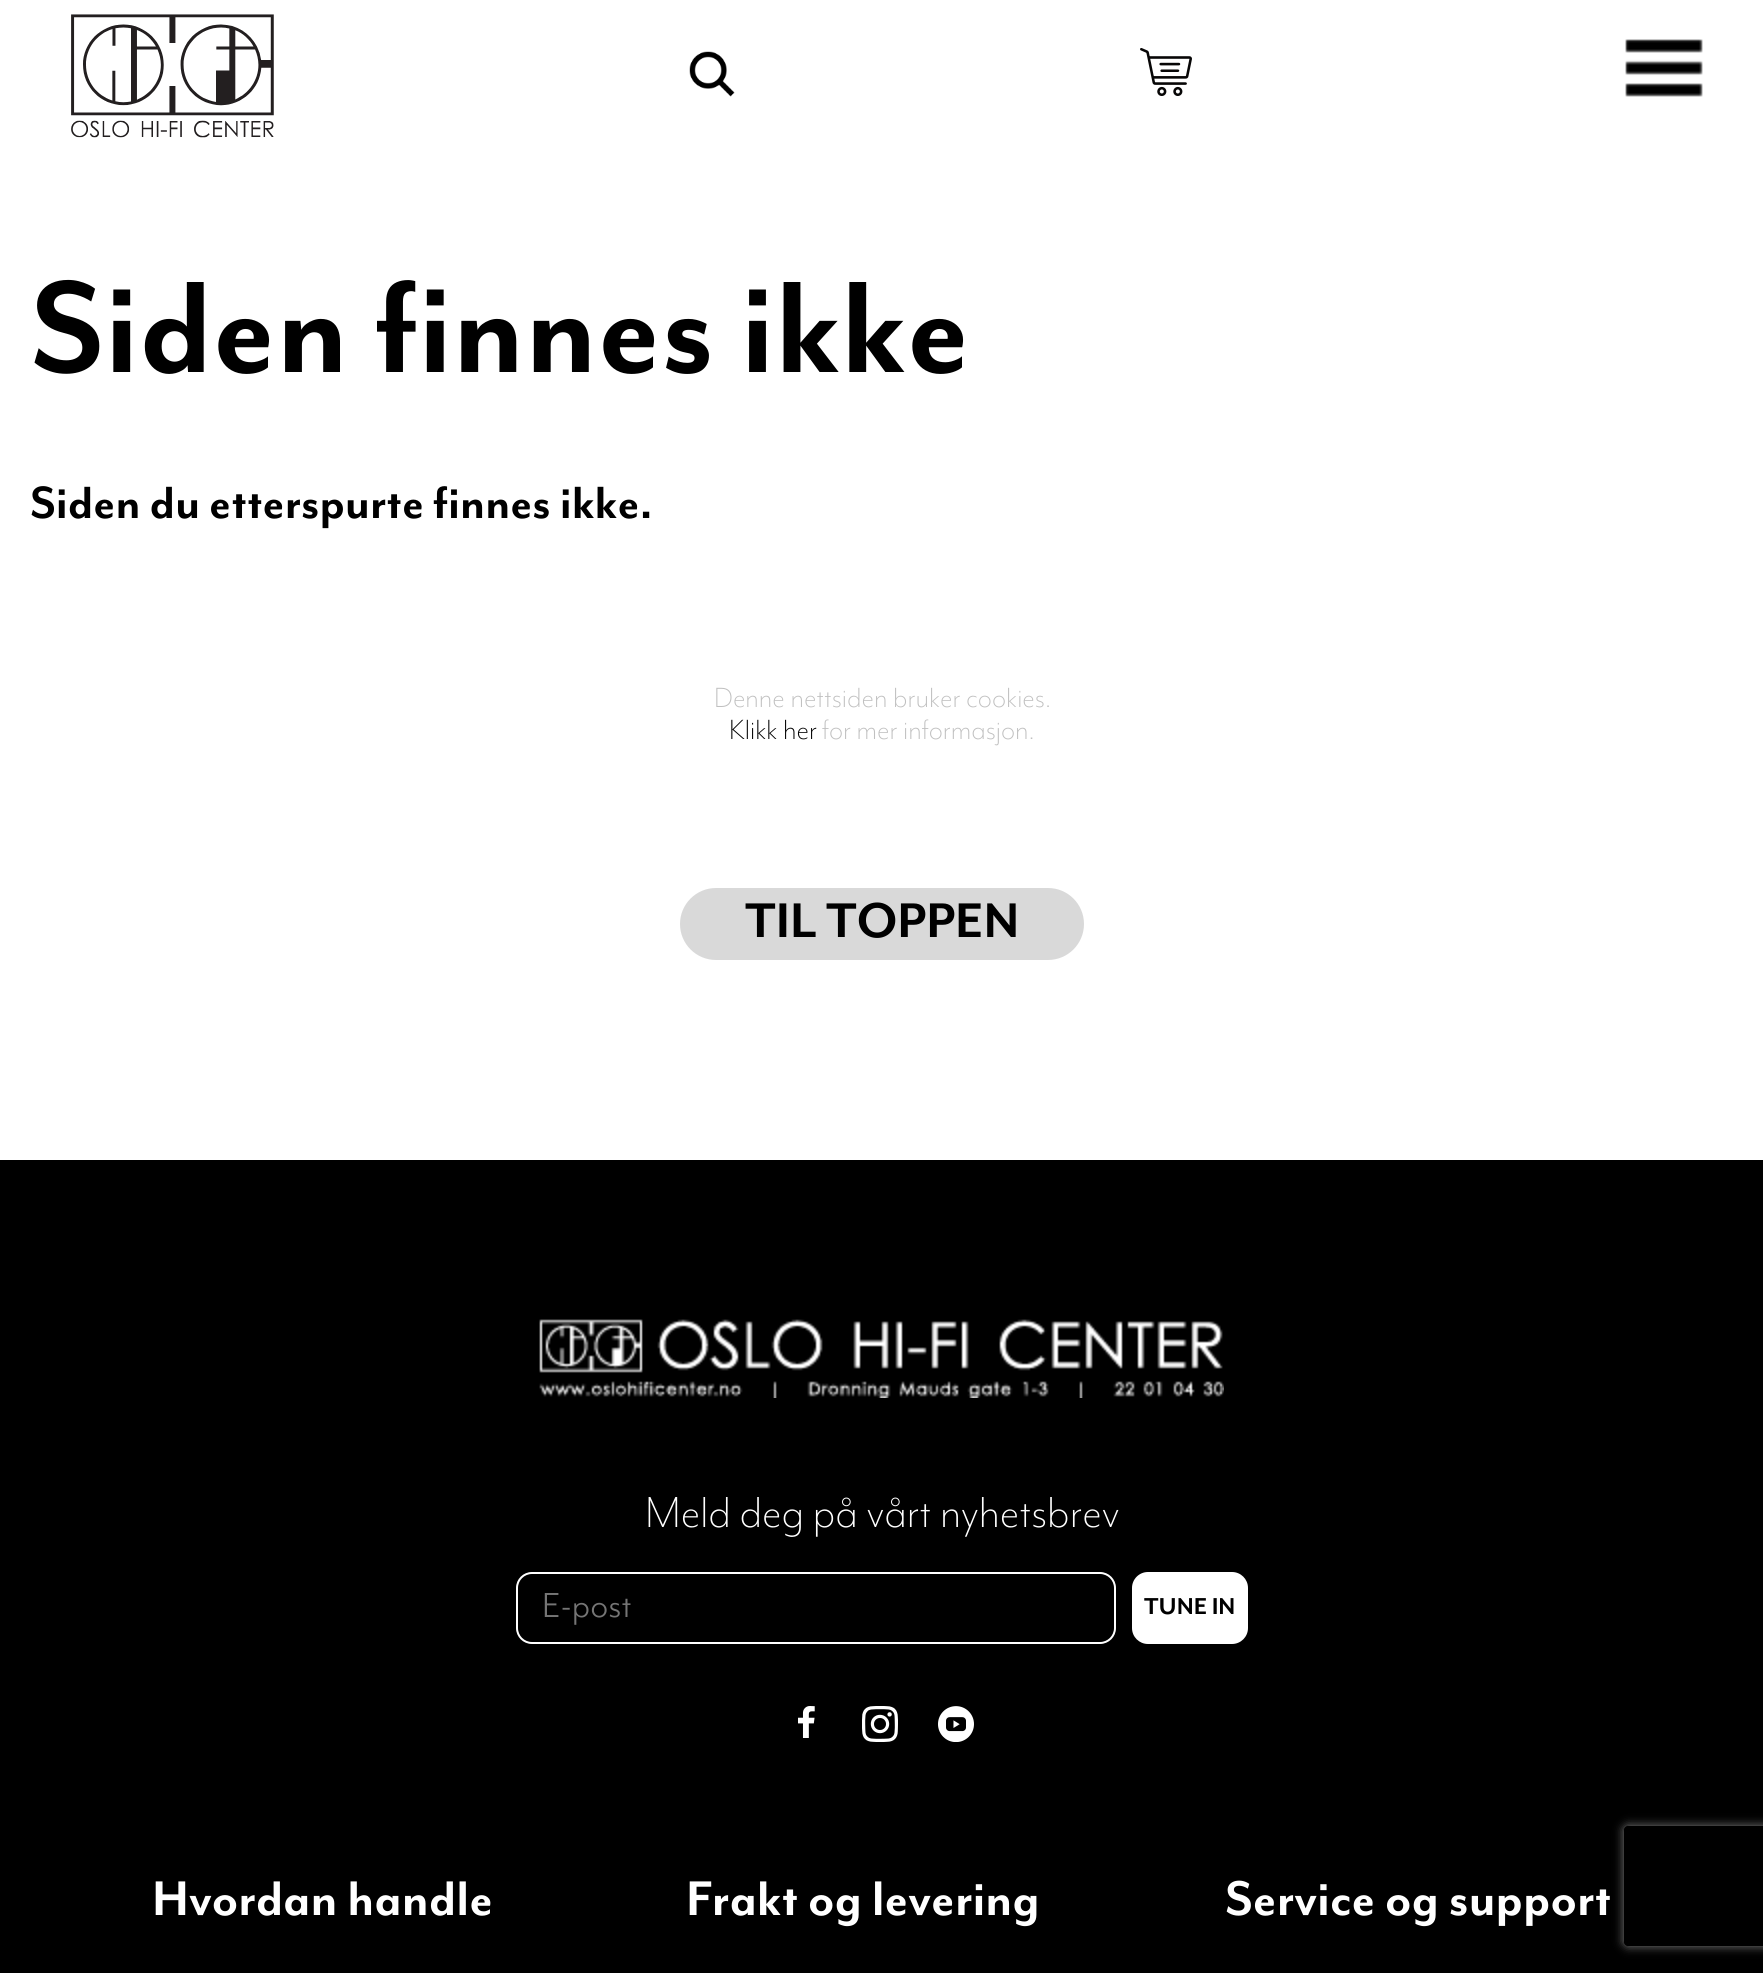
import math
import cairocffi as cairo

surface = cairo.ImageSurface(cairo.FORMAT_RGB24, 1763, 1973)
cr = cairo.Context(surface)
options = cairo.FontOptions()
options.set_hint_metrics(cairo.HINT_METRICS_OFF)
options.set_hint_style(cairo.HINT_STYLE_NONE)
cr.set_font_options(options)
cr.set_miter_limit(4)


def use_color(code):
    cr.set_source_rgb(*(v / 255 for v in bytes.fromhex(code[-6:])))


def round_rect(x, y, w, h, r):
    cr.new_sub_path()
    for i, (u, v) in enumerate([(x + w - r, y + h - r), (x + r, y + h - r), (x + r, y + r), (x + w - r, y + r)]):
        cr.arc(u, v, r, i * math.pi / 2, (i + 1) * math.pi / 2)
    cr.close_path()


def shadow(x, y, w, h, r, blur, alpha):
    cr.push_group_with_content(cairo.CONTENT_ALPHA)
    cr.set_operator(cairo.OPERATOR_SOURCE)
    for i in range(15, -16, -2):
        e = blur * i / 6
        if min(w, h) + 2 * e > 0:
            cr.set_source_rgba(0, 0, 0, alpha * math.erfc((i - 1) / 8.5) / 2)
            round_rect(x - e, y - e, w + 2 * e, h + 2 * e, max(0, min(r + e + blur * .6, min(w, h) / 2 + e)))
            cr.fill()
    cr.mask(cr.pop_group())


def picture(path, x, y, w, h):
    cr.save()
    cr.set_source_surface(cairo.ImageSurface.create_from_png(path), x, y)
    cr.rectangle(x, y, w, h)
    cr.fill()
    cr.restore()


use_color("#ffffff")
cr.paint()
picture("img1.png", 71, 14, 203, 124)
picture("img2.png", 689, 51, 46, 46)
picture("img3.png", 1140, 48, 52, 48)
picture("img4.png", 1625, 39, 78, 58)
cr.select_font_face("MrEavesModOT", cairo.FONT_SLANT_NORMAL, cairo.FONT_WEIGHT_BOLD)
cr.set_font_size(150)
use_color("#000000")
cr.move_to(30, 372)
cr.show_text("Siden finnes ikke")
cr.set_font_size(52)
cr.move_to(30, 518)
cr.show_text("Siden du etterspurte finnes ikke.")
cr.select_font_face("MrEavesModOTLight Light")
cr.set_font_size(32)
use_color("#c0c0c0")
cr.move_to(714, 707)
cr.show_text("Denne nettsiden bruker cookies.")
use_color("#000000")
cr.move_to(729, 739)
cr.show_text("Klikk her")
use_color("#c0c0c0")
cr.move_to(822, 739)
cr.show_text("for mer informasjon.")
use_color("#d9d9d9")
round_rect(680, 888, 404, 72, 36)
cr.fill()
cr.select_font_face("MrEavesModOT", cairo.FONT_SLANT_NORMAL, cairo.FONT_WEIGHT_BOLD)
cr.set_font_size(56)
use_color("#000000")
cr.move_to(745, 937)
cr.show_text("TIL TOPPEN")
cr.rectangle(0, 1160, 1763, 813)
cr.fill()
picture("img5.png", 539, 1319, 685, 79)
cr.select_font_face("MrEavesModOTLight Light")
cr.set_font_size(50)
use_color("#ffffff")
cr.move_to(645, 1527)
cr.show_text("Meld deg på vårt nyhetsbrev")
round_rect(517, 1573, 598, 70, 15)
cr.stroke()
cr.select_font_face("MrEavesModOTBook")
cr.set_font_size(40)
use_color("#757575")
cr.move_to(542, 1617)
cr.show_text("E-post")
use_color("#ffffff")
round_rect(1132, 1572, 116, 72, 16)
cr.fill()
cr.select_font_face("MrEavesModOT", cairo.FONT_SLANT_NORMAL, cairo.FONT_WEIGHT_BOLD)
cr.set_font_size(26.5)
use_color("#000000")
cr.move_to(1144, 1614)
cr.show_text("TUNE IN")
picture("img6.png", 798, 1706, 17, 32)
picture("img7.png", 862, 1706, 36, 36)
picture("img8.png", 938, 1706, 36, 36)
cr.set_font_size(56)
use_color("#ffffff")
cr.move_to(152, 1915)
cr.show_text("Hvordan handle")
cr.move_to(686, 1915)
cr.show_text("Frakt og levering")
cr.move_to(1225, 1915)
cr.show_text("Service og support")
cr.save()
cr.set_fill_rule(cairo.FILL_RULE_EVEN_ODD)
cr.new_path()
cr.move_to(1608, 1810)
cr.line_to(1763, 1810)
cr.line_to(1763, 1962)
cr.line_to(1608, 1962)
cr.close_path()
cr.move_to(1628, 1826)
cr.line_to(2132, 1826)
cr.curve_to(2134, 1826, 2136, 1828, 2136, 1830)
cr.line_to(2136, 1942)
cr.curve_to(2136, 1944, 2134, 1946, 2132, 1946)
cr.line_to(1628, 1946)
cr.curve_to(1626, 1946, 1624, 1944, 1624, 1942)
cr.line_to(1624, 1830)
cr.curve_to(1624, 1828, 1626, 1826, 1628, 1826)
cr.close_path()
cr.clip()
use_color("#808080")
shadow(1624, 1826, 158, 120, 4, 5, 1)
cr.restore()
surface.write_to_png("result.png")
